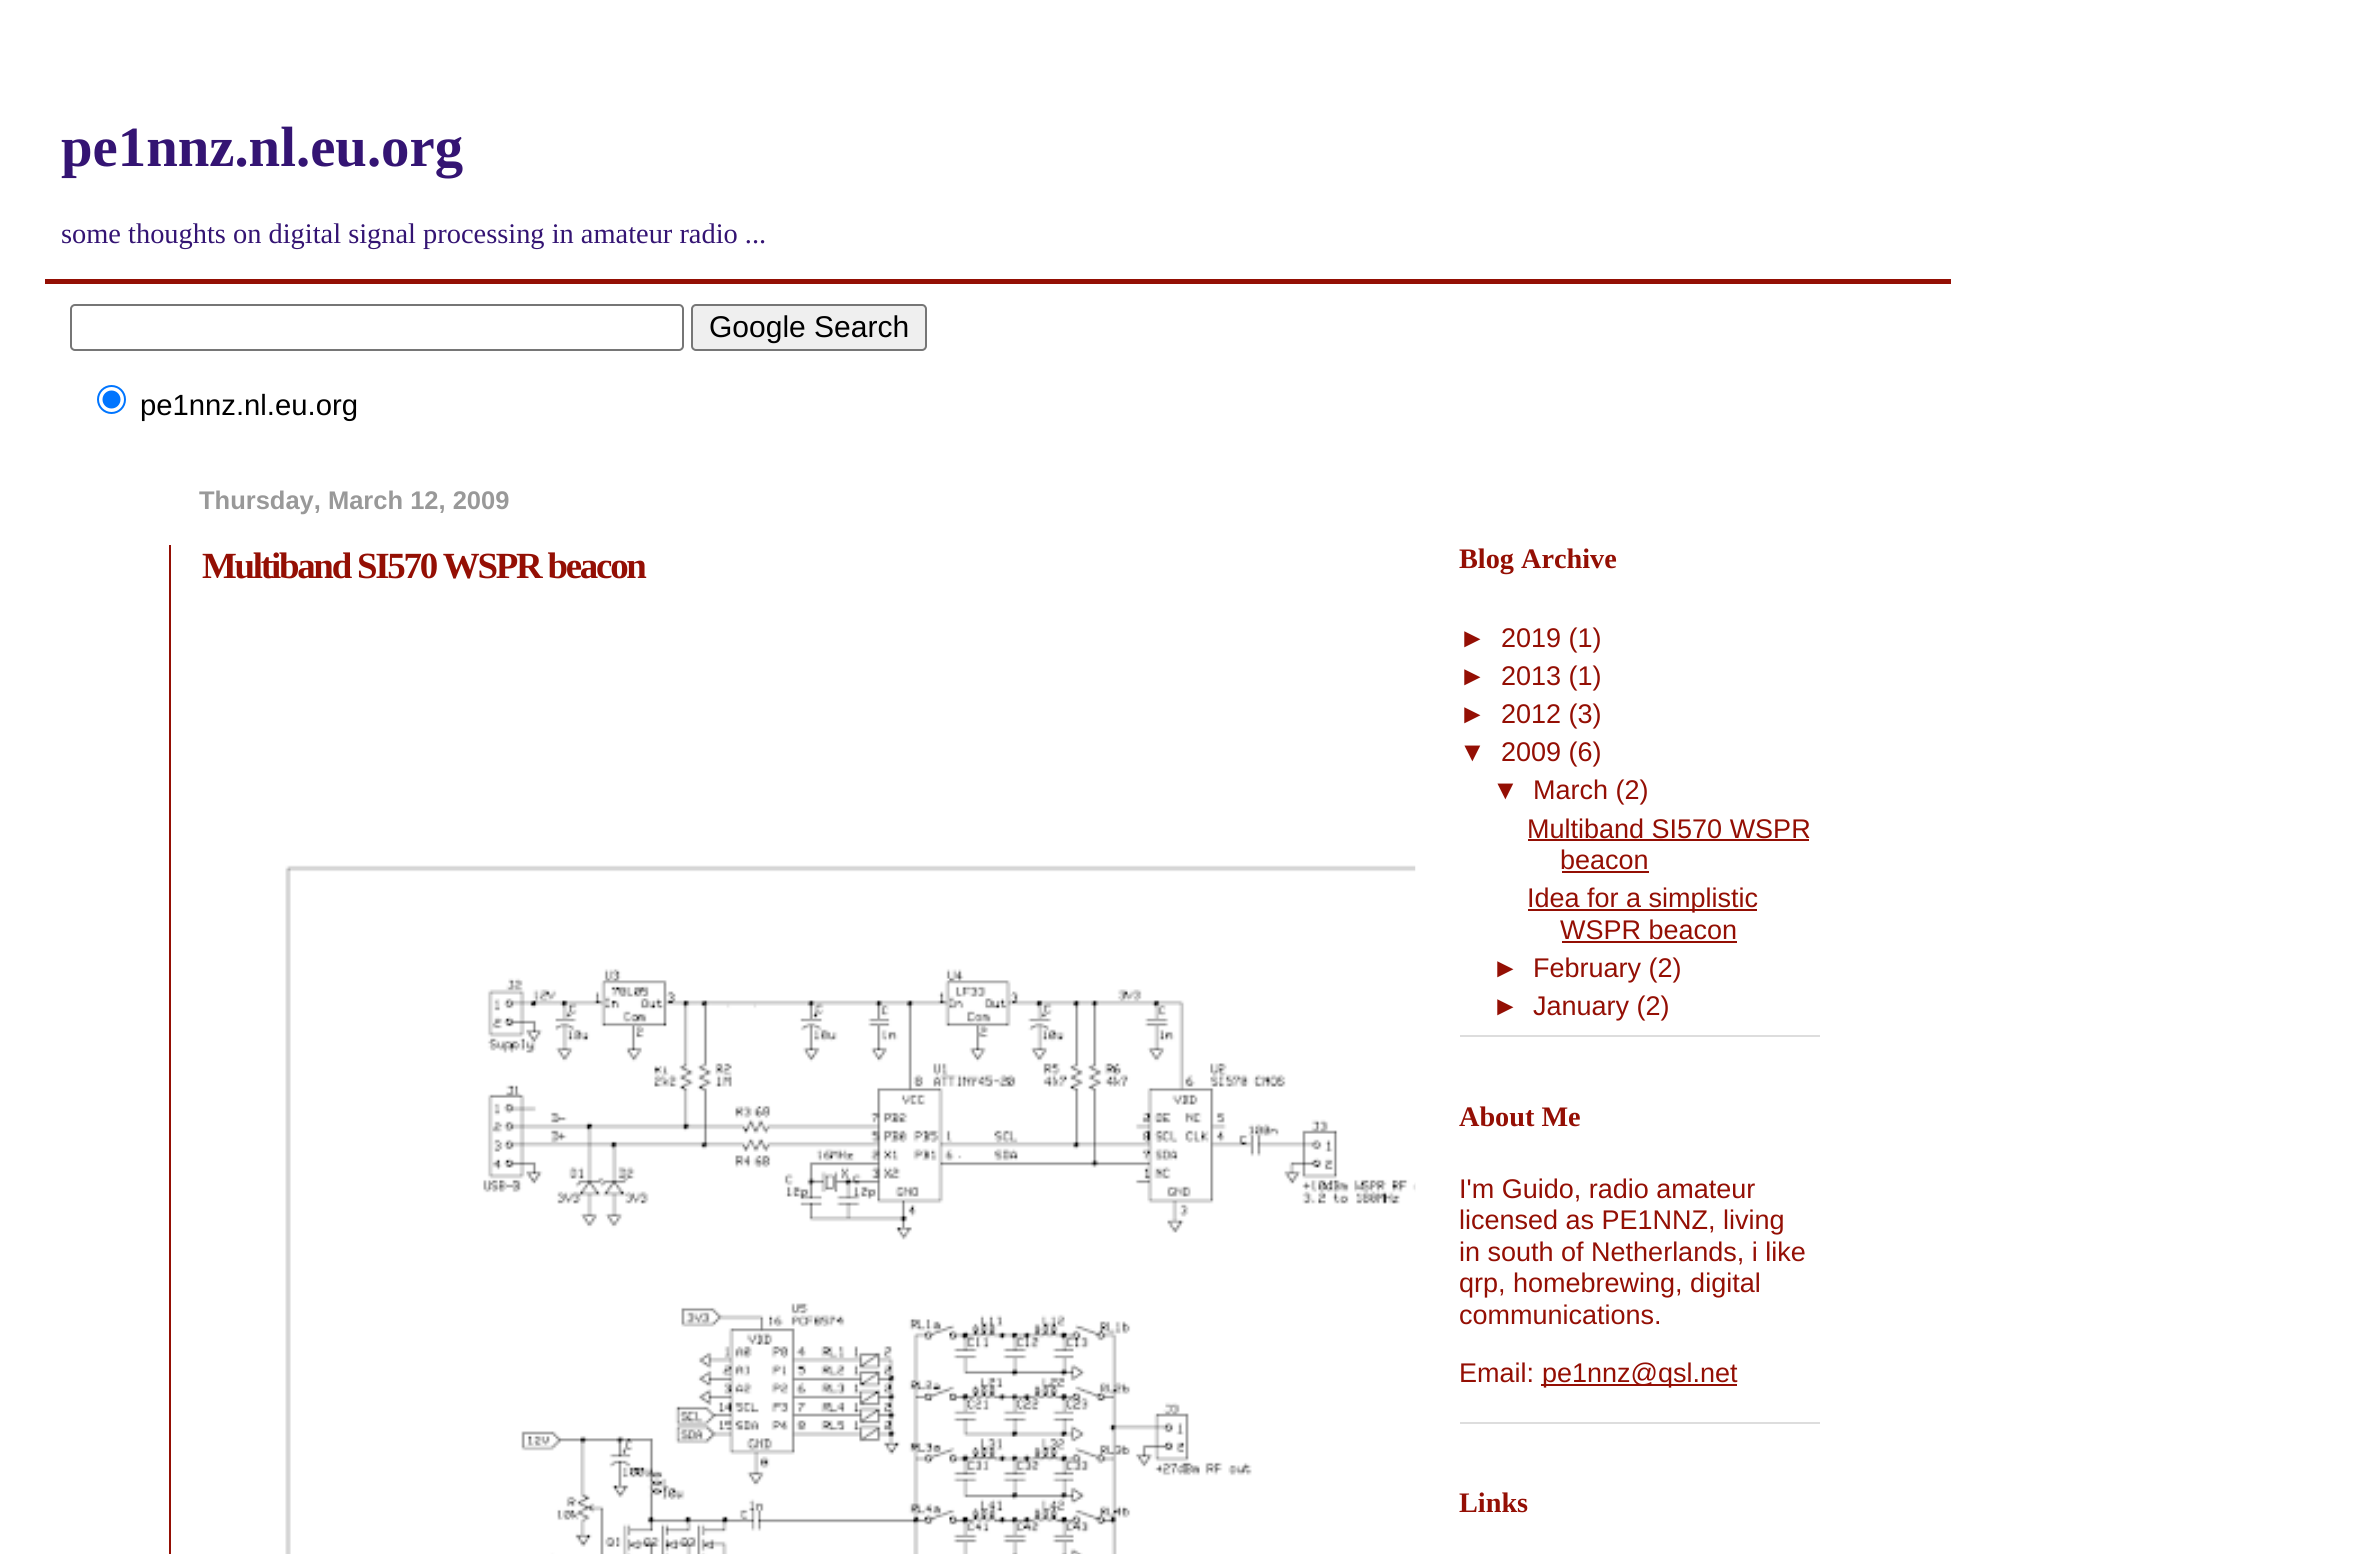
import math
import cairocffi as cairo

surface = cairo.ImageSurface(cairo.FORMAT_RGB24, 2362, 1554)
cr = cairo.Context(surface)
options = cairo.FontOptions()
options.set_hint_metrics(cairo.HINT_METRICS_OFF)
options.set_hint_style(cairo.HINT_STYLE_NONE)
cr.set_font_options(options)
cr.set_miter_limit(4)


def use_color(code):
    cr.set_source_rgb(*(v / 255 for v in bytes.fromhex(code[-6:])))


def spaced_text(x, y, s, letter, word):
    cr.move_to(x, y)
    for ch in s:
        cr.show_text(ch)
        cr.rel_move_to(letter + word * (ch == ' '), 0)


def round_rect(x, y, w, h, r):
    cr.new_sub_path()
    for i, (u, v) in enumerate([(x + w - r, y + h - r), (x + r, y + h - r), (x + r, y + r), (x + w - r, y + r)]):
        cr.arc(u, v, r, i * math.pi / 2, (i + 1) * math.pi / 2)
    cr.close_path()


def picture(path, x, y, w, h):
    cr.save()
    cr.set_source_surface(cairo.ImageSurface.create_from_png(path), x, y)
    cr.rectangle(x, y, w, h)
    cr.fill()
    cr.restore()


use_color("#ffffff")
cr.paint()
use_color("#940f04")
cr.rectangle(45, 279, 1906, 5)
cr.fill()
cr.select_font_face("Liberation Serif", cairo.FONT_SLANT_NORMAL, cairo.FONT_WEIGHT_BOLD)
cr.set_font_size(56.75)
use_color("#341473")
cr.move_to(61, 166)
cr.show_text("pe1nnz.nl.eu.org")
cr.select_font_face("Liberation Serif")
cr.set_font_size(28.4)
cr.move_to(61, 243)
cr.show_text("some thoughts on digital signal processing in amateur radio ...")
round_rect(71, 305, 612, 45, 4)
use_color("#767676")
cr.stroke()
use_color("#efefef")
round_rect(692, 305, 234, 45, 4)
cr.fill_preserve()
use_color("#767676")
cr.stroke()
cr.select_font_face("Liberation Sans")
cr.set_font_size(30)
use_color("#000000")
cr.move_to(709, 337)
cr.show_text("Google Search")
cr.new_path()
cr.arc(111.5, 399.5, 13.5, 0, 2 * math.pi)
use_color("#0075ff")
cr.stroke()
cr.arc(111.5, 399.5, 9, 0, 2 * math.pi)
cr.fill()
cr.set_font_size(29.25)
use_color("#000000")
cr.move_to(140, 415)
cr.show_text("pe1nnz.nl.eu.org")
cr.select_font_face("Liberation Sans", cairo.FONT_SLANT_NORMAL, cairo.FONT_WEIGHT_BOLD)
cr.set_font_size(25.5)
use_color("#999999")
cr.move_to(199, 509)
cr.show_text("Thursday, March 12, 2009")
use_color("#940f04")
cr.rectangle(169, 545, 2, 1009)
cr.fill()
cr.select_font_face("Liberation Serif", cairo.FONT_SLANT_NORMAL, cairo.FONT_WEIGHT_BOLD)
cr.set_font_size(36.9)
spaced_text(202, 578, "Multiband SI570 WSPR beacon", -2.25, 0)
picture("img1.png", 285, 865, 1131, 689)
use_color("#dddddd")
cr.rectangle(1460, 1035, 360, 2)
cr.fill()
cr.set_font_size(28.25)
use_color("#940f04")
cr.move_to(1459, 568)
cr.show_text("Blog Archive")
cr.select_font_face("Liberation Sans")
cr.set_font_size(27)
cr.move_to(1459, 647)
cr.show_text("►")
cr.move_to(1501, 647)
cr.show_text("2019 (1)")
cr.move_to(1459, 685)
cr.show_text("►")
cr.move_to(1501, 685)
cr.show_text("2013 (1)")
cr.move_to(1459, 723)
cr.show_text("►")
cr.move_to(1501, 723)
cr.show_text("2012 (3)")
cr.move_to(1459, 761)
cr.show_text("▼")
cr.move_to(1501, 761)
cr.show_text("2009 (6)")
cr.move_to(1492, 799)
cr.show_text("▼")
cr.move_to(1533, 799)
cr.show_text("March (2)")
cr.move_to(1527, 838)
cr.show_text("Multiband SI570 WSPR")
cr.rectangle(1528, 839, 281, 2)
cr.fill()
cr.move_to(1560, 869)
cr.show_text("beacon")
cr.rectangle(1562, 871, 87, 2)
cr.fill()
cr.rectangle(1528, 909, 229, 2)
cr.fill()
cr.move_to(1527, 907)
cr.show_text("Idea for a simplistic")
cr.move_to(1560, 939)
cr.show_text("WSPR beacon")
cr.rectangle(1562, 941, 175, 2)
cr.fill()
cr.move_to(1492, 977)
cr.show_text("►")
cr.move_to(1533, 977)
cr.show_text("February (2)")
cr.move_to(1492, 1015)
cr.show_text("►")
cr.move_to(1533, 1015)
cr.show_text("January (2)")
use_color("#dddddd")
cr.rectangle(1460, 1422, 360, 2)
cr.fill()
cr.select_font_face("Liberation Serif", cairo.FONT_SLANT_NORMAL, cairo.FONT_WEIGHT_BOLD)
cr.set_font_size(28.25)
use_color("#940f04")
cr.move_to(1459, 1126)
cr.show_text("About Me")
cr.select_font_face("Liberation Sans")
cr.set_font_size(27)
cr.move_to(1459, 1198)
cr.show_text("I'm Guido, radio amateur")
cr.move_to(1459, 1229)
cr.show_text("licensed as PE1NNZ, living")
cr.move_to(1459, 1261)
cr.show_text("in south of Netherlands, i like")
cr.move_to(1459, 1292)
cr.show_text("qrp, homebrewing, digital")
cr.move_to(1459, 1324)
cr.show_text("communications.")
cr.move_to(1459, 1382)
cr.show_text("Email:")
cr.rectangle(1541, 1384, 196, 2)
cr.fill()
cr.move_to(1542, 1382)
cr.show_text("pe1nnz@qsl.net")
cr.select_font_face("Liberation Serif", cairo.FONT_SLANT_NORMAL, cairo.FONT_WEIGHT_BOLD)
cr.set_font_size(28.25)
cr.move_to(1459, 1512)
cr.show_text("Links")
surface.write_to_png("result.png")
